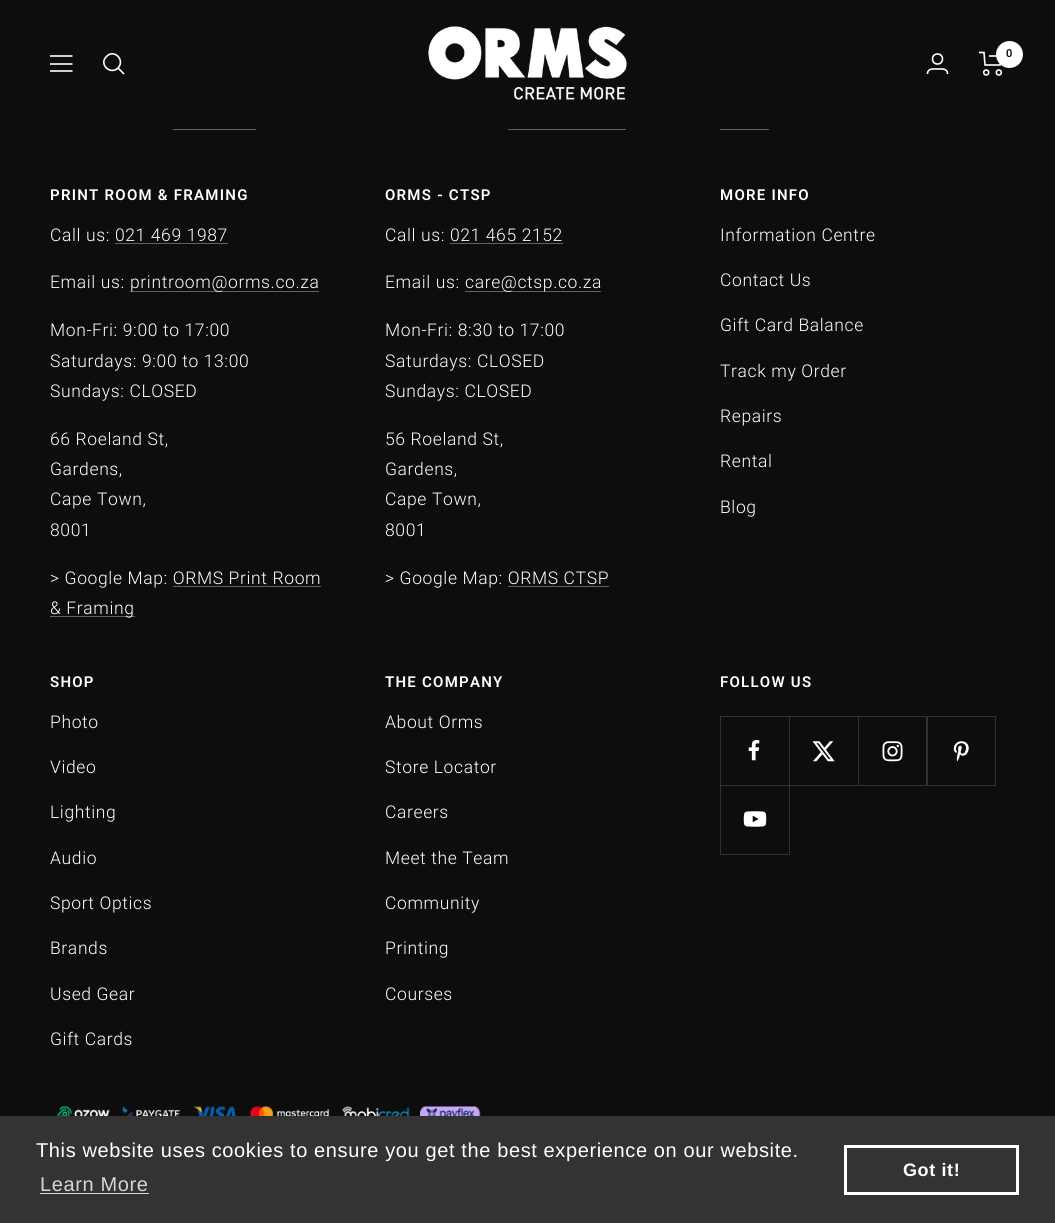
import math
import cairocffi as cairo

surface = cairo.ImageSurface(cairo.FORMAT_RGB24, 1055, 1223)
cr = cairo.Context(surface)
options = cairo.FontOptions()
options.set_hint_metrics(cairo.HINT_METRICS_OFF)
options.set_hint_style(cairo.HINT_STYLE_NONE)
cr.set_font_options(options)
cr.set_miter_limit(4)


def use_color(code):
    cr.set_source_rgb(*(v / 255 for v in bytes.fromhex(code[-6:])))


def spaced_text(x, y, s, letter, word):
    cr.move_to(x, y)
    for ch in s:
        cr.show_text(ch)
        cr.rel_move_to(letter + word * (ch == ' '), 0)


def picture(path, x, y, w, h):
    cr.save()
    cr.set_source_surface(cairo.ImageSurface.create_from_png(path), x, y)
    cr.rectangle(x, y, w, h)
    cr.fill()
    cr.restore()


use_color("#0d0d0d")
cr.paint()
cr.new_path()
cr.move_to(50, 56)
cr.line_to(72.5, 56)
cr.move_to(50, 71)
cr.line_to(72.5, 71)
cr.close_path()
cr.move_to(50, 64)
cr.line_to(72.5, 64)
cr.close_path()
use_color("#ffffff")
cr.set_line_width(1.6)
cr.stroke()
cr.new_path()
cr.move_to(118, 68)
cr.curve_to(125.5, 60, 114, 48.5, 106.5, 56.5)
cr.curve_to(98.5, 64, 110, 75.5, 118, 68)
cr.close_path()
cr.move_to(118, 68)
cr.line_to(124, 74)
cr.stroke()
picture("img1.png", 428, 26, 199, 74)
cr.arc(937.5, 59, 5, 0, 2 * math.pi)
cr.stroke()
cr.new_path()
cr.move_to(927.5, 74)
cr.curve_to(927.5, 68, 933.5, 69, 937.5, 69)
cr.curve_to(941.5, 69, 947.5, 68, 947.5, 74)
cr.stroke()
cr.new_path()
cr.move_to(979, 52.5)
cr.line_to(984, 52.5)
cr.line_to(985, 65)
cr.line_to(1000, 65)
cr.line_to(1002.5, 56)
cr.line_to(989, 56)
cr.stroke()
cr.arc(986.2, 72.5, 2.5, 0, 2 * math.pi)
cr.stroke()
cr.arc(998.8, 72.5, 2.5, 0, 2 * math.pi)
cr.stroke()
cr.arc(1009.5, 54.5, 13.5, 0, 2 * math.pi)
cr.fill()
cr.select_font_face("Roboto SemiBold")
cr.set_font_size(11)
use_color("#0d0d0d")
cr.move_to(1006, 57)
cr.show_text("0")
use_color("#626262")
cr.rectangle(173, 129, 83, 1)
cr.fill()
cr.rectangle(508, 129, 118, 1)
cr.fill()
cr.rectangle(720, 129, 49, 1)
cr.fill()
cr.set_font_size(15)
use_color("#ffffff")
spaced_text(50, 200, "PRINT ROOM & FRAMING", 1.25, 0)
cr.select_font_face("Roboto Light")
cr.set_font_size(17.5)
spaced_text(50, 241, "Call us: 021 469 1987", 0.62, 0)
use_color("#626262")
cr.rectangle(115, 243, 113, 1)
cr.fill()
use_color("#ffffff")
spaced_text(50, 288, "Email us:", 0.62, 0)
use_color("#626262")
cr.rectangle(130, 291, 189, 1)
cr.fill()
use_color("#ffffff")
spaced_text(130, 288, "printroom@orms.co.za", 0.62, 0)
spaced_text(50, 336, "Mon-Fri: 9:00 to 17:00", 0.62, 0)
spaced_text(50, 367, "Saturdays: 9:00 to 13:00", 0.62, 0)
spaced_text(50, 397, "Sundays: CLOSED", 0.62, 0)
spaced_text(50, 445, "66 Roeland St,", 0.62, 0)
spaced_text(50, 475, "Gardens,", 0.62, 0)
spaced_text(50, 505, "Cape Town,", 0.62, 0)
spaced_text(50, 536, "8001", 0.62, 0)
spaced_text(50, 584, "> Google Map: ORMS Print Room", 0.62, 0)
use_color("#626262")
cr.rectangle(50, 616, 85, 1)
cr.fill()
use_color("#ffffff")
spaced_text(50, 614, "& Framing", 0.62, 0)
use_color("#626262")
cr.rectangle(173, 586, 148, 1)
cr.fill()
cr.select_font_face("Roboto SemiBold")
cr.set_font_size(15)
use_color("#ffffff")
spaced_text(385, 200, "ORMS - CTSP", 1.25, 0)
cr.select_font_face("Roboto Light")
cr.set_font_size(17.5)
spaced_text(385, 241, "Call us: 021 465 2152", 0.62, 0)
use_color("#626262")
cr.rectangle(450, 243, 113, 1)
cr.fill()
use_color("#ffffff")
spaced_text(385, 288, "Email us:", 0.62, 0)
use_color("#626262")
cr.rectangle(465, 291, 136, 1)
cr.fill()
use_color("#ffffff")
spaced_text(465, 288, "care@ctsp.co.za", 0.62, 0)
spaced_text(385, 336, "Mon-Fri: 8:30 to 17:00", 0.62, 0)
spaced_text(385, 367, "Saturdays: CLOSED", 0.62, 0)
spaced_text(385, 397, "Sundays: CLOSED", 0.62, 0)
spaced_text(385, 445, "56 Roeland St,", 0.62, 0)
spaced_text(385, 475, "Gardens,", 0.62, 0)
spaced_text(385, 505, "Cape Town,", 0.62, 0)
spaced_text(385, 536, "8001", 0.62, 0)
spaced_text(385, 584, "> Google Map: ORMS CTSP", 0.62, 0)
use_color("#626262")
cr.rectangle(508, 586, 101, 1)
cr.fill()
cr.select_font_face("Roboto SemiBold")
cr.set_font_size(15)
use_color("#ffffff")
spaced_text(720, 200, "MORE INFO", 1.25, 0)
cr.select_font_face("Roboto Light")
cr.set_font_size(17.5)
spaced_text(720, 241, "Information Centre", 0.62, 0)
spaced_text(720, 286, "Contact Us", 0.62, 0)
spaced_text(720, 331, "Gift Card Balance", 0.62, 0)
spaced_text(720, 377, "Track my Order", 0.62, 0)
spaced_text(720, 422, "Repairs", 0.62, 0)
spaced_text(720, 467, "Rental", 0.62, 0)
spaced_text(720, 513, "Blog", 0.62, 0)
cr.select_font_face("Roboto SemiBold")
cr.set_font_size(15)
spaced_text(50, 687, "SHOP", 1.25, 0)
cr.select_font_face("Roboto Light")
cr.set_font_size(17.5)
spaced_text(50, 728, "Photo", 0.62, 0)
spaced_text(50, 773, "Video", 0.62, 0)
spaced_text(50, 818, "Lighting", 0.62, 0)
spaced_text(50, 864, "Audio", 0.62, 0)
spaced_text(50, 909, "Sport Optics", 0.62, 0)
spaced_text(50, 954, "Brands", 0.62, 0)
spaced_text(50, 1000, "Used Gear", 0.62, 0)
spaced_text(50, 1045, "Gift Cards", 0.62, 0)
cr.select_font_face("Roboto SemiBold")
cr.set_font_size(15)
spaced_text(385, 687, "THE COMPANY", 1.25, 0)
cr.select_font_face("Roboto Light")
cr.set_font_size(17.5)
spaced_text(385, 728, "About Orms", 0.62, 0)
spaced_text(385, 773, "Store Locator", 0.62, 0)
spaced_text(385, 818, "Careers", 0.62, 0)
spaced_text(385, 864, "Meet the Team", 0.62, 0)
spaced_text(385, 909, "Community", 0.62, 0)
spaced_text(385, 954, "Printing", 0.62, 0)
spaced_text(385, 1000, "Courses", 0.62, 0)
cr.select_font_face("Roboto SemiBold")
cr.set_font_size(15)
spaced_text(720, 687, "FOLLOW US", 1.25, 0)
use_color("#313131")
cr.new_path()
cr.move_to(721, 785)
cr.line_to(721, 786)
cr.line_to(790, 786)
cr.line_to(790, 718)
cr.line_to(789, 718)
cr.line_to(789, 785)
cr.close_path()
cr.fill()
cr.new_path()
cr.move_to(720, 785)
cr.line_to(720, 786)
cr.line_to(789, 786)
cr.line_to(789, 718)
cr.line_to(789, 785)
cr.close_path()
cr.fill()
cr.new_path()
cr.move_to(721, 716)
cr.line_to(789, 716)
cr.line_to(789, 785)
cr.line_to(790, 785)
cr.line_to(790, 716)
cr.close_path()
cr.fill()
cr.rectangle(720, 716, 138, 1)
cr.fill()
cr.rectangle(720, 716, 1, 138)
cr.fill()
picture("img2.png", 748, 740, 12, 21)
cr.new_path()
cr.move_to(790, 785)
cr.line_to(790, 786)
cr.line_to(859, 786)
cr.line_to(859, 718)
cr.line_to(858, 718)
cr.line_to(858, 785)
cr.close_path()
cr.fill()
cr.new_path()
cr.move_to(790, 716)
cr.line_to(858, 716)
cr.line_to(858, 785)
cr.line_to(859, 785)
cr.line_to(859, 716)
cr.close_path()
cr.fill()
picture("img3.png", 812, 741, 23, 21)
cr.new_path()
cr.move_to(859, 785)
cr.line_to(859, 786)
cr.line_to(928, 786)
cr.line_to(928, 718)
cr.line_to(926, 718)
cr.line_to(926, 785)
cr.close_path()
cr.fill()
cr.new_path()
cr.move_to(859, 716)
cr.line_to(926, 716)
cr.line_to(926, 785)
cr.line_to(928, 785)
cr.line_to(928, 716)
cr.close_path()
cr.fill()
cr.rectangle(858, 716, 137, 1)
cr.fill()
picture("img4.png", 882, 741, 21, 21)
cr.new_path()
cr.move_to(928, 785)
cr.line_to(928, 786)
cr.line_to(996, 786)
cr.line_to(996, 718)
cr.line_to(995, 718)
cr.line_to(995, 785)
cr.close_path()
cr.fill()
cr.new_path()
cr.move_to(928, 716)
cr.line_to(995, 716)
cr.line_to(995, 785)
cr.line_to(996, 785)
cr.line_to(996, 716)
cr.close_path()
cr.fill()
picture("img5.png", 953, 741, 16, 21)
cr.new_path()
cr.move_to(721, 854)
cr.line_to(721, 855)
cr.line_to(790, 855)
cr.line_to(790, 786)
cr.line_to(789, 786)
cr.line_to(789, 854)
cr.close_path()
cr.fill()
cr.new_path()
cr.move_to(720, 854)
cr.line_to(720, 855)
cr.line_to(789, 855)
cr.line_to(789, 786)
cr.line_to(789, 854)
cr.close_path()
cr.fill()
picture("img6.png", 743, 811, 24, 16)
picture("img7.png", 57, 1106, 424, 10)
use_color("#333333")
cr.rectangle(0, 1116, 1055, 107)
cr.fill()
cr.select_font_face("Liberation Sans")
cr.set_font_size(20)
use_color("#ffffff")
spaced_text(36, 1157, "This website uses cookies to ensure you get the best experience on our website.", 0.62, 0)
use_color("#d6d6d6")
spaced_text(40, 1191, "Learn More", 0.62, 0)
cr.rectangle(40, 1193, 109, 1)
cr.fill()
cr.rectangle(845.5, 1146.5, 172, 47)
use_color("#ffffff")
cr.set_line_width(3)
cr.stroke()
cr.select_font_face("Liberation Sans", cairo.FONT_SLANT_NORMAL, cairo.FONT_WEIGHT_BOLD)
cr.set_font_size(18)
spaced_text(903, 1176, "Got it!", 0.62, 0)
surface.write_to_png("result.png")
